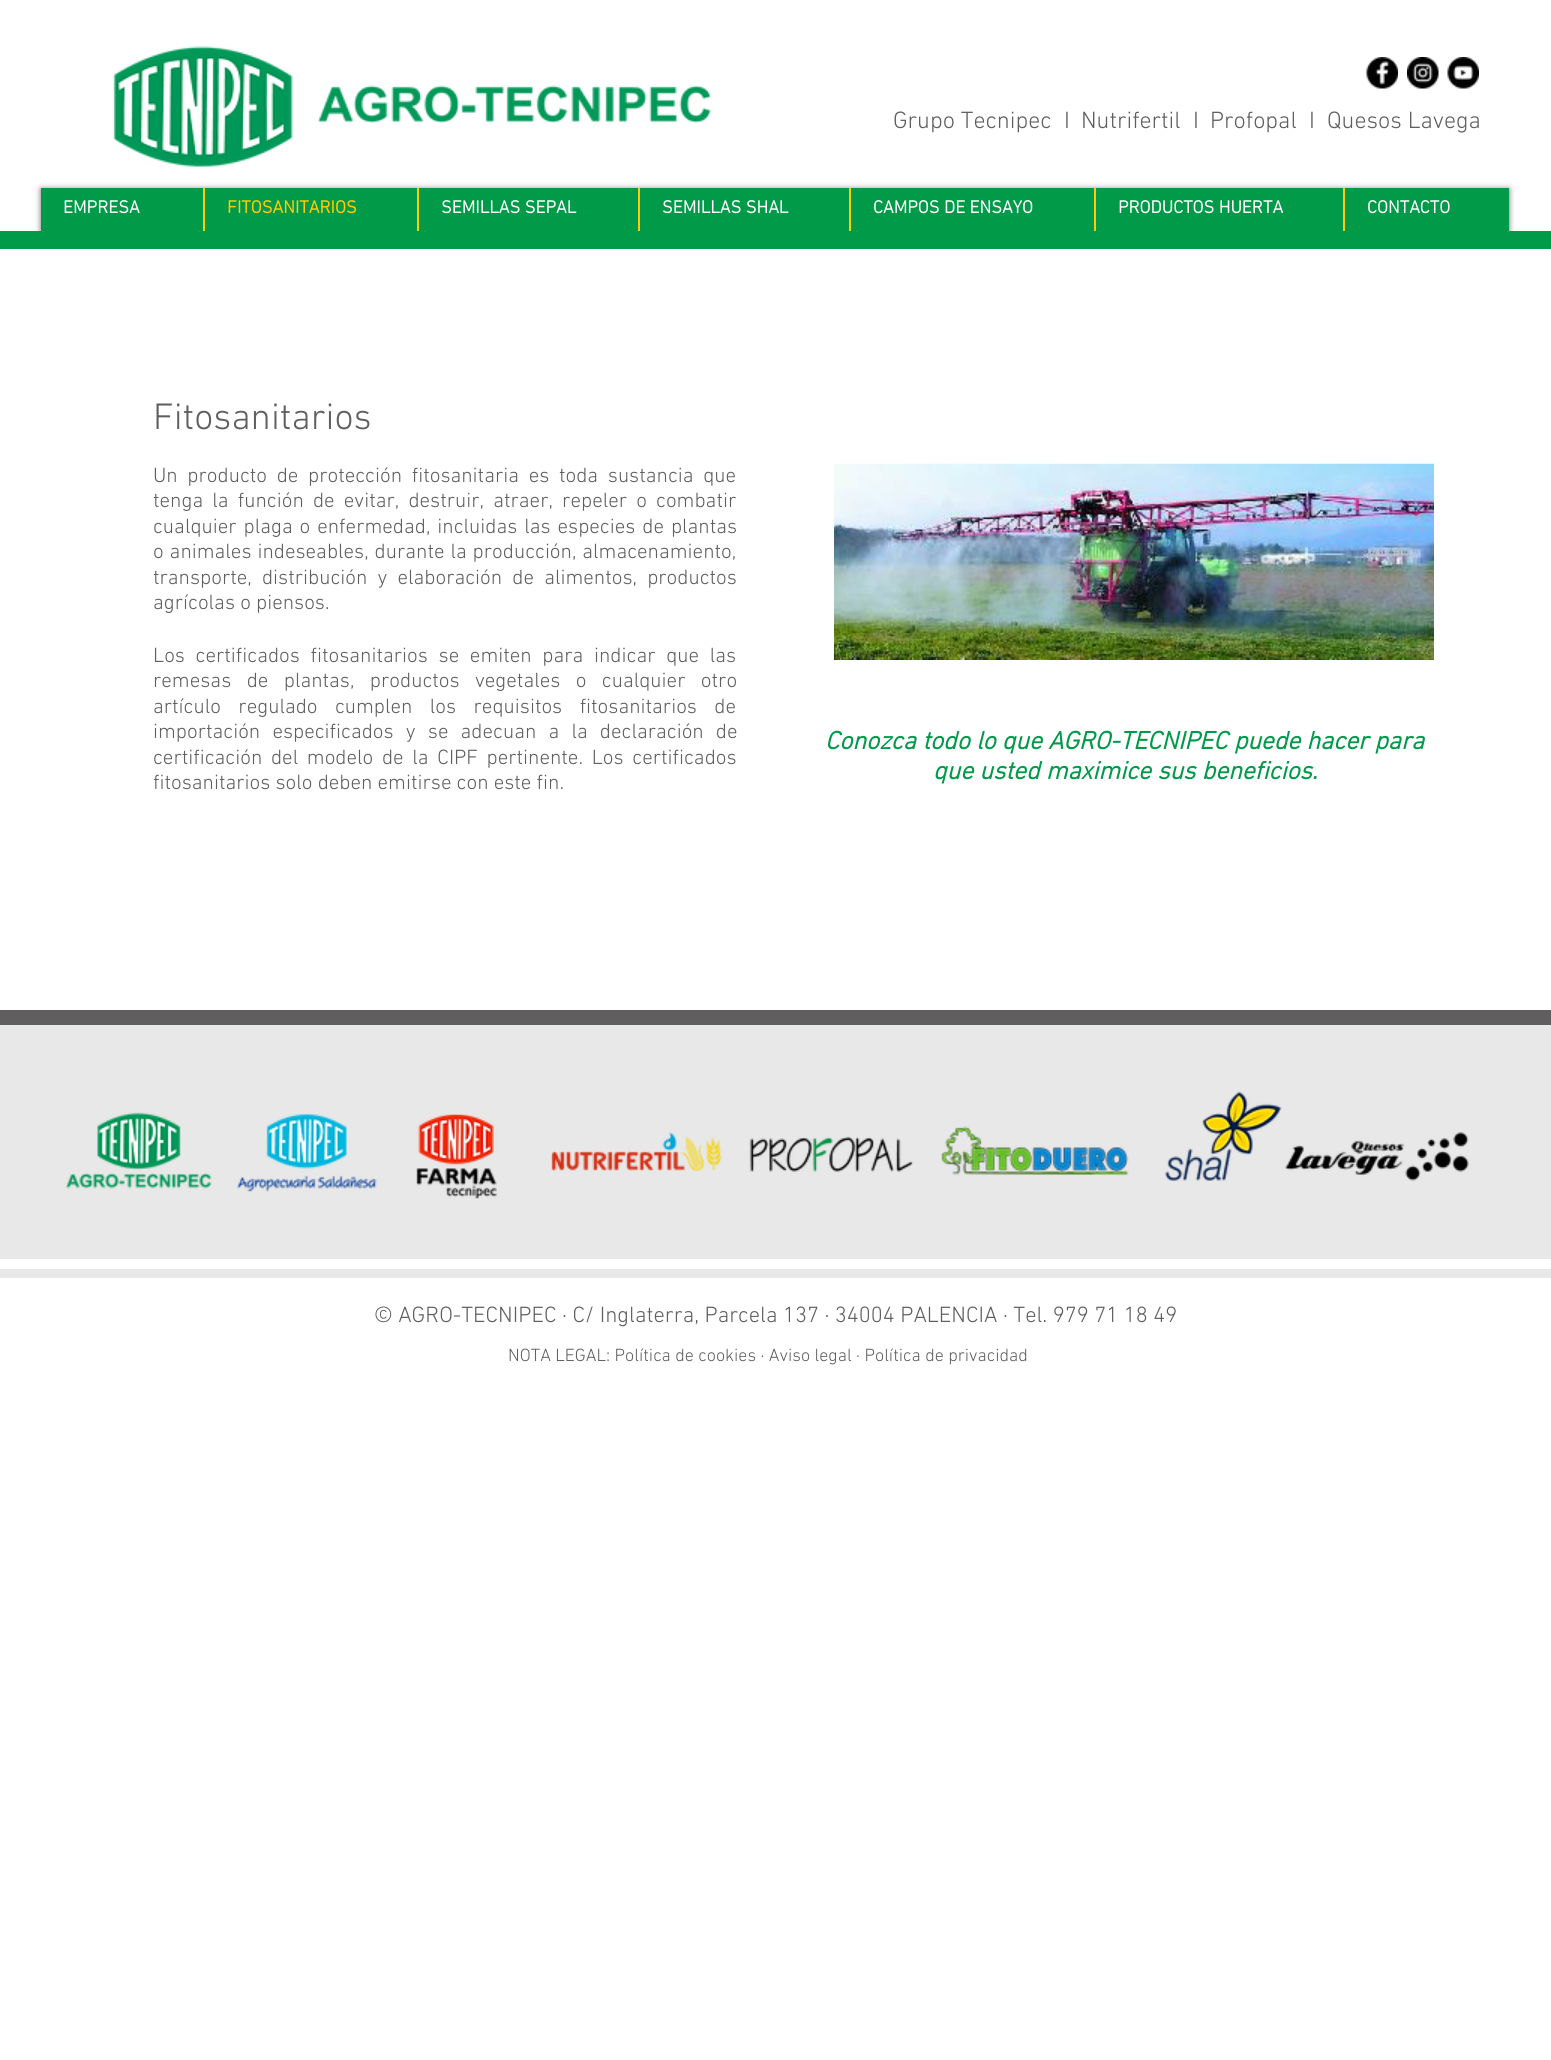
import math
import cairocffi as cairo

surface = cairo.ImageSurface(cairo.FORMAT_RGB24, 1551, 2060)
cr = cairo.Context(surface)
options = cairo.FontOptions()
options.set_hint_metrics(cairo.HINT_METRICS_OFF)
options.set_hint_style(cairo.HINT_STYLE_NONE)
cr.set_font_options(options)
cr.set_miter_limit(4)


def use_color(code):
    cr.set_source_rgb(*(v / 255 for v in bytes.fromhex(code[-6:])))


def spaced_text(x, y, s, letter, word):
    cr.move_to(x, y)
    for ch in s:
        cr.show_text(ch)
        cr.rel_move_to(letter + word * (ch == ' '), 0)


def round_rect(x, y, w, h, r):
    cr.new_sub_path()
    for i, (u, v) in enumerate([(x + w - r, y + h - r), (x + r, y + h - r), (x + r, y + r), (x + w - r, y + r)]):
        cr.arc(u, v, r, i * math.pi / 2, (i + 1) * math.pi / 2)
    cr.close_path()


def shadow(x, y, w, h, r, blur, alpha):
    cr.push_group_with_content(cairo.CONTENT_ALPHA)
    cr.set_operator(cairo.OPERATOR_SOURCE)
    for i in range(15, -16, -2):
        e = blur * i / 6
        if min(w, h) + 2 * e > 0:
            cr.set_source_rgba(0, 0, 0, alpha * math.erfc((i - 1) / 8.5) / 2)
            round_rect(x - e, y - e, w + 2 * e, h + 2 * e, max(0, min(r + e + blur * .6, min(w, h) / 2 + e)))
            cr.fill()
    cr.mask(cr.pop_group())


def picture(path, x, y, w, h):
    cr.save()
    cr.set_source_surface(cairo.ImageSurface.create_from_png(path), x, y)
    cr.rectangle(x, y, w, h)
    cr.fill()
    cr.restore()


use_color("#ffffff")
cr.paint()
picture("img1.png", 113, 46, 599, 121)
picture("img2.png", 1366, 57, 32, 32)
picture("img3.png", 1407, 57, 32, 32)
picture("img4.png", 1447, 57, 32, 32)
cr.select_font_face("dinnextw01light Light")
cr.set_font_size(24)
use_color("#605e5e")
cr.move_to(893, 128)
cr.show_text("Grupo Tecnipec")
cr.move_to(1064, 128)
cr.show_text("I")
cr.move_to(1081, 128)
cr.show_text("Nutrifertil")
cr.move_to(1193, 128)
cr.show_text("I")
cr.move_to(1210, 128)
cr.show_text("Profopal")
cr.move_to(1309, 128)
cr.show_text("I")
cr.move_to(1327, 128)
cr.show_text("Quesos Lavega")
use_color("#000000")
shadow(41, 189, 1468, 44, 0, 3, 0.6)
use_color("#009a49")
cr.rectangle(41, 188, 1468, 43)
cr.fill()
cr.select_font_face("dinnextw01light", cairo.FONT_SLANT_NORMAL, cairo.FONT_WEIGHT_BOLD)
cr.set_font_size(18)
use_color("#ffffff")
cr.move_to(63, 213)
cr.show_text("EMPRESA")
use_color("#ffcb05")
cr.rectangle(203, 188, 2, 43)
cr.fill()
cr.move_to(227, 213)
cr.show_text("FITOSANITARIOS")
cr.rectangle(417, 188, 2, 43)
cr.fill()
use_color("#ffffff")
cr.move_to(441, 213)
cr.show_text("SEMILLAS SEPAL")
use_color("#ffcb05")
cr.rectangle(638, 188, 2, 43)
cr.fill()
use_color("#ffffff")
cr.move_to(662, 213)
cr.show_text("SEMILLAS SHAL")
use_color("#ffcb05")
cr.rectangle(849, 188, 2, 43)
cr.fill()
use_color("#ffffff")
cr.move_to(873, 213)
cr.show_text("CAMPOS DE ENSAYO")
use_color("#ffcb05")
cr.rectangle(1094, 188, 2, 43)
cr.fill()
use_color("#ffffff")
cr.move_to(1118, 213)
cr.show_text("PRODUCTOS HUERTA")
use_color("#ffcb05")
cr.rectangle(1343, 188, 2, 43)
cr.fill()
use_color("#ffffff")
cr.move_to(1367, 213)
cr.show_text("CONTACTO")
use_color("#009a49")
cr.rectangle(0, 231, 1551, 18)
cr.fill()
cr.select_font_face("dinnextw01light Light")
cr.set_font_size(37.5)
use_color("#605e5e")
cr.move_to(153, 429)
cr.show_text("Fitosanitarios")
cr.set_font_size(21)
spaced_text(153, 482, "Un producto de protección fitosanitaria es toda sustancia que", 0, 4.5)
spaced_text(153, 507, "tenga la función de evitar, destruir, atraer, repeler o combatir", 0, 4)
spaced_text(153, 533, "cualquier plaga o enfermedad, incluidas las especies de plantas", 0, 1.75)
spaced_text(153, 558, "o animales indeseables, durante la producción, almacenamiento,", 0, 0.75)
spaced_text(153, 584, "transporte, distribución y elaboración de alimentos, productos", 0, 5)
cr.move_to(153, 609)
cr.show_text("agrícolas o piensos.")
spaced_text(153, 662, "Los certificados fitosanitarios se emiten para indicar que las", 0, 5.5)
spaced_text(153, 687, "remesas de plantas, productos vegetales o cualquier otro", 0, 10.25)
spaced_text(153, 713, "artículo regulado cumplen los requisitos fitosanitarios de", 0, 12.25)
spaced_text(153, 738, "importación especificados y se adecuan a la declaración de", 0, 7)
spaced_text(153, 764, "certificación del modelo de la CIPF pertinente. Los certificados", 0, 3.5)
cr.move_to(153, 789)
cr.show_text("fitosanitarios solo deben emitirse con este fin.")
picture("img5.png", 834, 463, 600, 197)
cr.select_font_face("dinnextw01light", cairo.FONT_SLANT_ITALIC, cairo.FONT_WEIGHT_BOLD)
cr.set_font_size(25.5)
use_color("#009a49")
cr.move_to(825, 749)
cr.show_text("Conozca todo lo que AGRO-TECNIPEC puede hacer para")
cr.move_to(933, 779)
cr.show_text("que usted maximice sus beneficios.")
use_color("#605e5e")
cr.rectangle(0, 1010, 1551, 15)
cr.fill()
use_color("#e8e8e8")
cr.rectangle(0, 1025, 1551, 234)
cr.fill()
picture("img6.png", 65, 1112, 147, 77)
picture("img7.png", 236, 1113, 141, 79)
picture("img8.png", 416, 1114, 81, 85)
picture("img9.png", 551, 1132, 171, 40)
picture("img10.png", 749, 1136, 164, 36)
picture("img11.png", 941, 1126, 188, 50)
picture("img12.png", 1165, 1091, 117, 90)
picture("img13.png", 1285, 1132, 184, 49)
cr.rectangle(0, 1269, 1551, 9)
cr.fill()
cr.select_font_face("dinnextw01light Light")
cr.set_font_size(22.5)
use_color("#605e5e")
cr.move_to(374, 1322)
cr.show_text("© AGRO-TECNIPEC · C/ Inglaterra, Parcela 137 · 34004 PALENCIA · Tel. 979 71 18 49")
cr.set_font_size(18)
cr.move_to(508, 1361)
cr.show_text("NOTA LEGAL: Política de cookies · Aviso legal · Política de privacidad")
surface.write_to_png("result.png")
